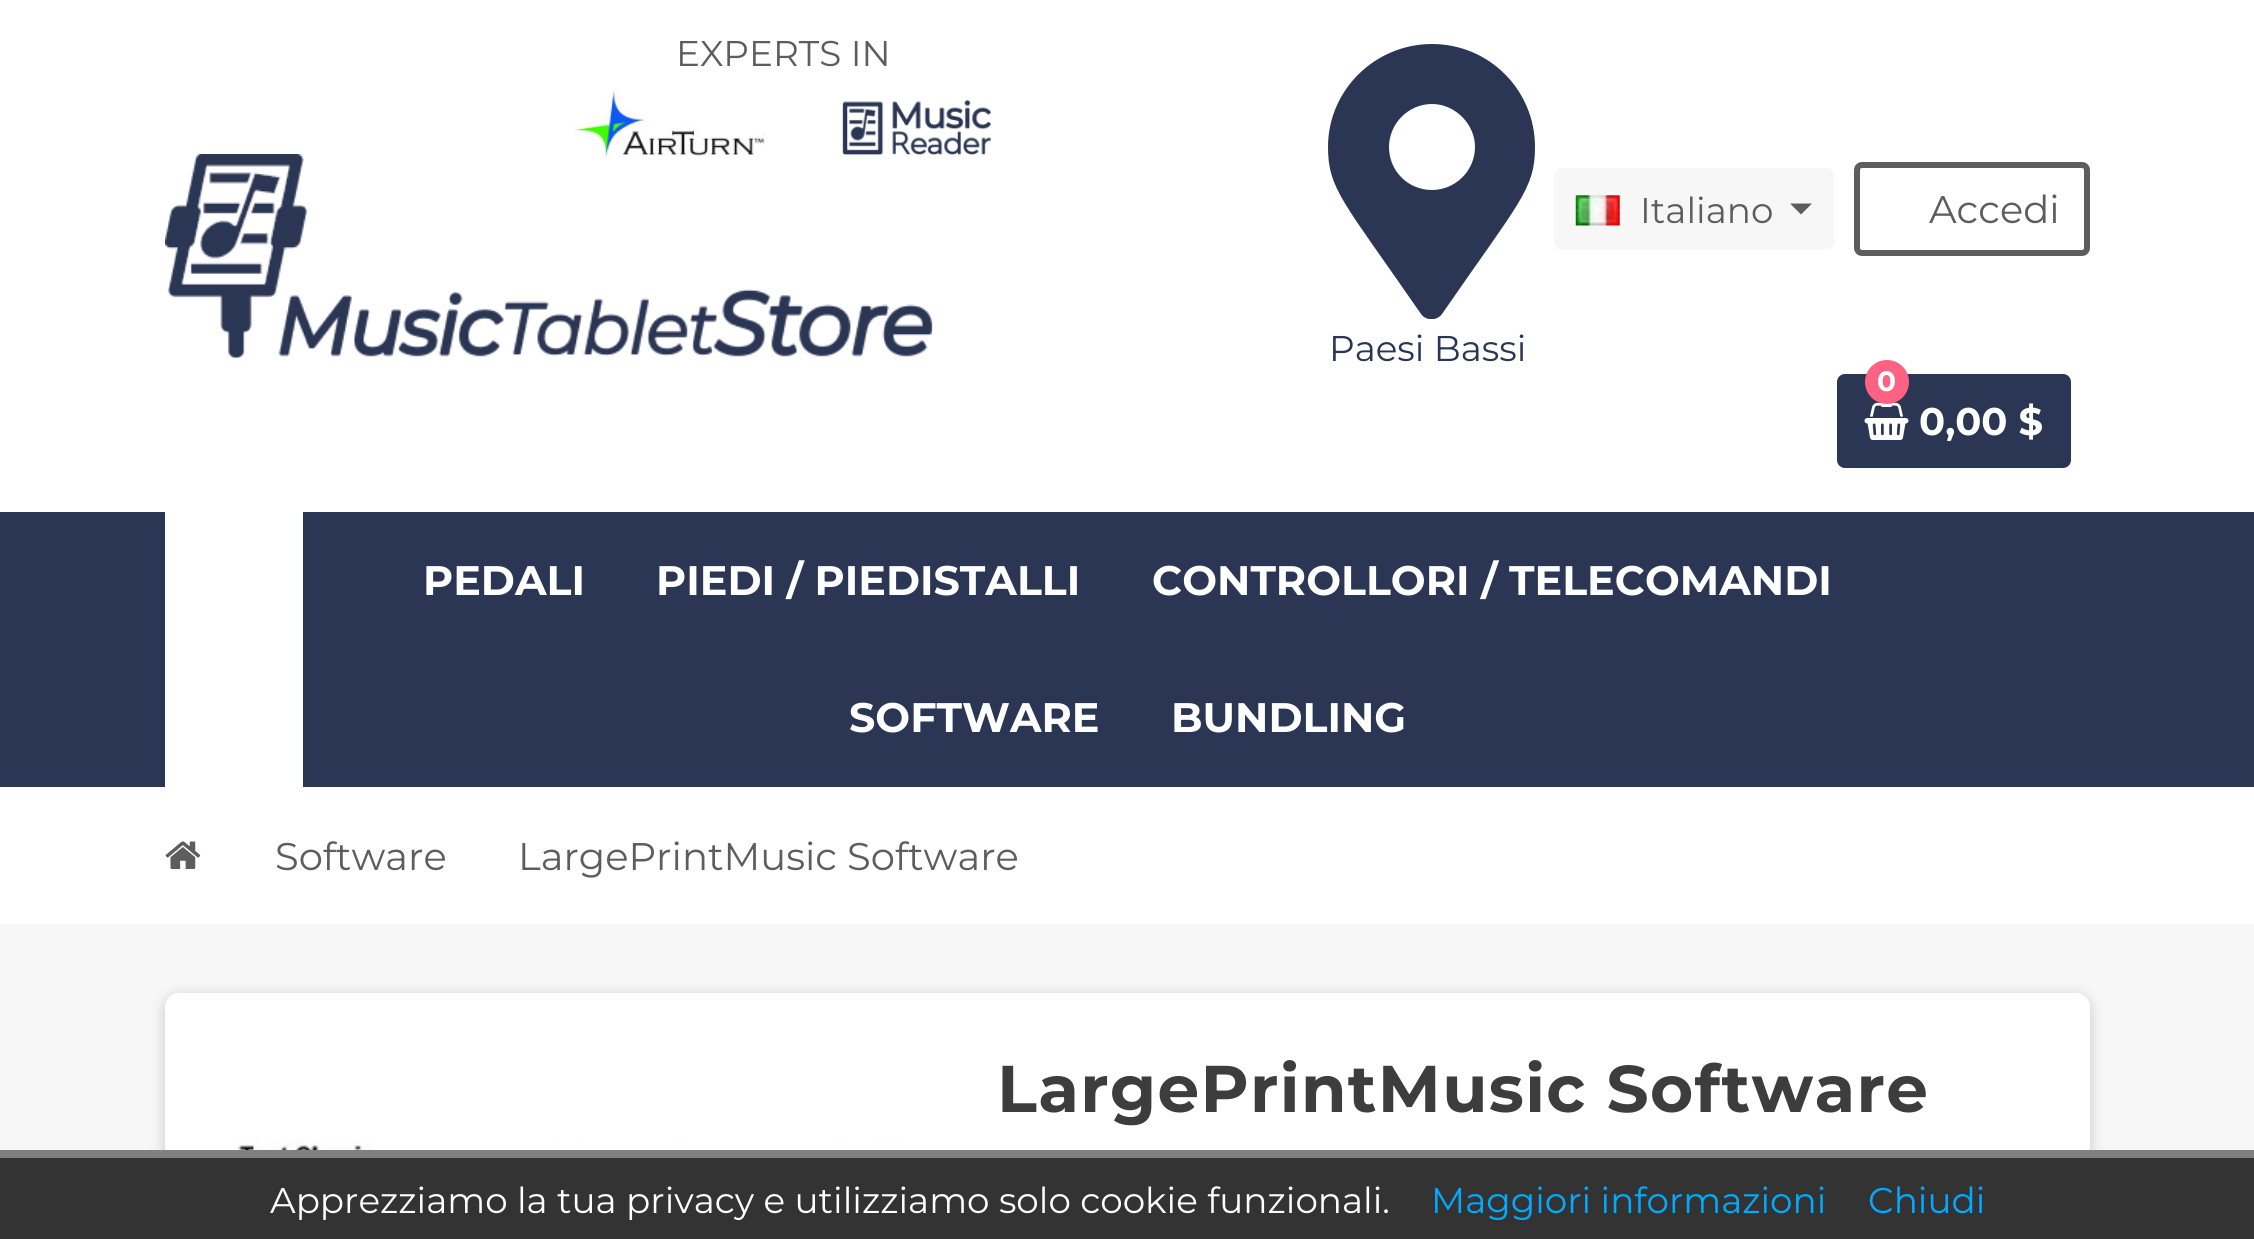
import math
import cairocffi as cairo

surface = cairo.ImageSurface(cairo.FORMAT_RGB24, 2254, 1239)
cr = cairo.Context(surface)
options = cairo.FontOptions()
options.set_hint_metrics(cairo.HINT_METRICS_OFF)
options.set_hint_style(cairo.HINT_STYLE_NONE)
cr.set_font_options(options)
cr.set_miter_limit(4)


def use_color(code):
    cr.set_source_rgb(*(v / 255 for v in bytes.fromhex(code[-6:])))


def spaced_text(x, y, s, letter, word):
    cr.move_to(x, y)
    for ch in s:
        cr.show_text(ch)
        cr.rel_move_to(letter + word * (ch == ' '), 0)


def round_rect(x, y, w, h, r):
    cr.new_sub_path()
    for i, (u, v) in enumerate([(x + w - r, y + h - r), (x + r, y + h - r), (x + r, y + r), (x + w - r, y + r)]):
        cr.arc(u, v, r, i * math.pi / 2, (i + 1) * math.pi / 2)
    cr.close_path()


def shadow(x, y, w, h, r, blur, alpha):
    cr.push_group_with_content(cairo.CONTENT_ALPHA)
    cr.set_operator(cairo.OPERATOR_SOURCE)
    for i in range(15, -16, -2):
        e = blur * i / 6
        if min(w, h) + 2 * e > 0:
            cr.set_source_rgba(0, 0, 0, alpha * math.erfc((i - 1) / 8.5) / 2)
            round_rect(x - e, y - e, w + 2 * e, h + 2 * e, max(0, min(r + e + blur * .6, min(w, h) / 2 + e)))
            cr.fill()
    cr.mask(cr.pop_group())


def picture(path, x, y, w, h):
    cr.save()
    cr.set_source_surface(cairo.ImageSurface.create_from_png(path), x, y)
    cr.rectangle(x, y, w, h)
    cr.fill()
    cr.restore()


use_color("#ffffff")
cr.paint()
cr.select_font_face("Montserrat Thin")
cr.set_font_size(35.75)
use_color("#5d5d5d")
cr.move_to(676, 66)
cr.show_text("EXPERTS IN")
picture("img1.png", 574, 89, 191, 69)
picture("img2.png", 842, 100, 149, 56)
picture("img3.png", 165, 154, 768, 204)
use_color("#f7f7f7")
round_rect(1554, 168, 280, 82, 8)
cr.fill()
picture("img4.png", 1575, 195, 45, 31)
use_color("#5d5d5d")
cr.move_to(1640, 223)
cr.show_text("Italiano")
cr.new_path()
cr.move_to(1790, 203.5)
cr.line_to(1812, 203.5)
cr.line_to(1801, 214.5)
cr.close_path()
cr.fill()
round_rect(1857, 165, 230, 88, 5)
cr.set_line_width(6)
cr.stroke()
cr.set_font_size(38.5)
cr.move_to(1929, 223)
cr.show_text("Accedi")
cr.save()
cr.rectangle(1328, 44, 207, 275)
cr.clip()
use_color("#2b3654")
cr.new_path()
cr.move_to(1421, 314)
cr.curve_to(1343, 201, 1328, 189, 1328, 147)
cr.curve_to(1328, 90, 1375, 44, 1432, 44)
cr.curve_to(1489, 44, 1535, 90, 1535, 147)
cr.curve_to(1535, 189, 1520, 201, 1442, 314)
cr.curve_to(1437, 321, 1426, 321, 1421, 314)
cr.close_path()
cr.move_to(1432, 190)
cr.curve_to(1455, 190, 1475, 171, 1475, 147)
cr.curve_to(1475, 124, 1455, 104, 1432, 104)
cr.curve_to(1408, 104, 1389, 124, 1389, 147)
cr.curve_to(1389, 171, 1408, 190, 1432, 190)
cr.close_path()
cr.fill()
cr.restore()
cr.set_font_size(35.75)
use_color("#2b3654")
cr.move_to(1329, 361)
cr.show_text("Paesi Bassi")
round_rect(1837, 374, 234, 94, 8)
cr.fill()
picture("img5.png", 1864, 402, 45, 38)
use_color("#fd6282")
cr.arc(1887, 382, 22, 0, 2 * math.pi)
cr.fill()
cr.select_font_face("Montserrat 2 Thin")
cr.set_font_size(28)
use_color("#ffffff")
cr.move_to(1877, 391)
cr.show_text("0")
cr.set_font_size(38.5)
cr.move_to(1919, 435)
cr.show_text("0,00 $")
use_color("#2b3654")
cr.rectangle(0, 512, 2254, 275)
cr.fill()
use_color("#ffffff")
cr.rectangle(165, 512, 138, 275)
cr.fill()
cr.set_font_size(41.25)
cr.move_to(423, 595)
cr.show_text("PEDALI")
cr.move_to(656, 595)
cr.show_text("PIEDI / PIEDISTALLI")
cr.move_to(1152, 595)
cr.show_text("CONTROLLORI / TELECOMANDI")
cr.move_to(849, 732)
cr.show_text("SOFTWARE")
cr.move_to(1171, 732)
cr.show_text("BUNDLING")
use_color("#f7f7f7")
cr.rectangle(0, 924, 2254, 226)
cr.fill()
picture("img6.png", 165, 841, 36, 28)
cr.select_font_face("Montserrat Thin")
cr.set_font_size(38.5)
use_color("#5d5d5d")
cr.move_to(275, 870)
cr.show_text("Software")
cr.move_to(518, 870)
cr.show_text("LargePrintMusic Software")
use_color("#000000")
shadow(165, 996, 1925, 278, 14, 7, 0.2)
use_color("#ffffff")
round_rect(165, 993, 1925, 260, 14)
cr.fill()
cr.select_font_face("Montserrat 2 Thin")
cr.set_font_size(66)
use_color("#3d3d3d")
spaced_text(997, 1112, "LargePrintMusic Software", 1.3, 0)
picture("img7.png", 234, 1138, 670, 12)
use_color("#333333")
cr.rectangle(0, 1158, 2254, 81)
cr.fill()
use_color("#808080")
cr.rectangle(0, 1150, 2254, 8)
cr.fill()
cr.select_font_face("Montserrat Thin")
cr.set_font_size(35.75)
use_color("#ffffff")
cr.move_to(270, 1213)
cr.show_text("Apprezziamo la tua privacy e utilizziamo solo cookie funzionali.")
use_color("#00aaff")
cr.move_to(1431, 1213)
cr.show_text("Maggiori informazioni")
cr.move_to(1868, 1213)
cr.show_text("Chiudi")
surface.write_to_png("result.png")
